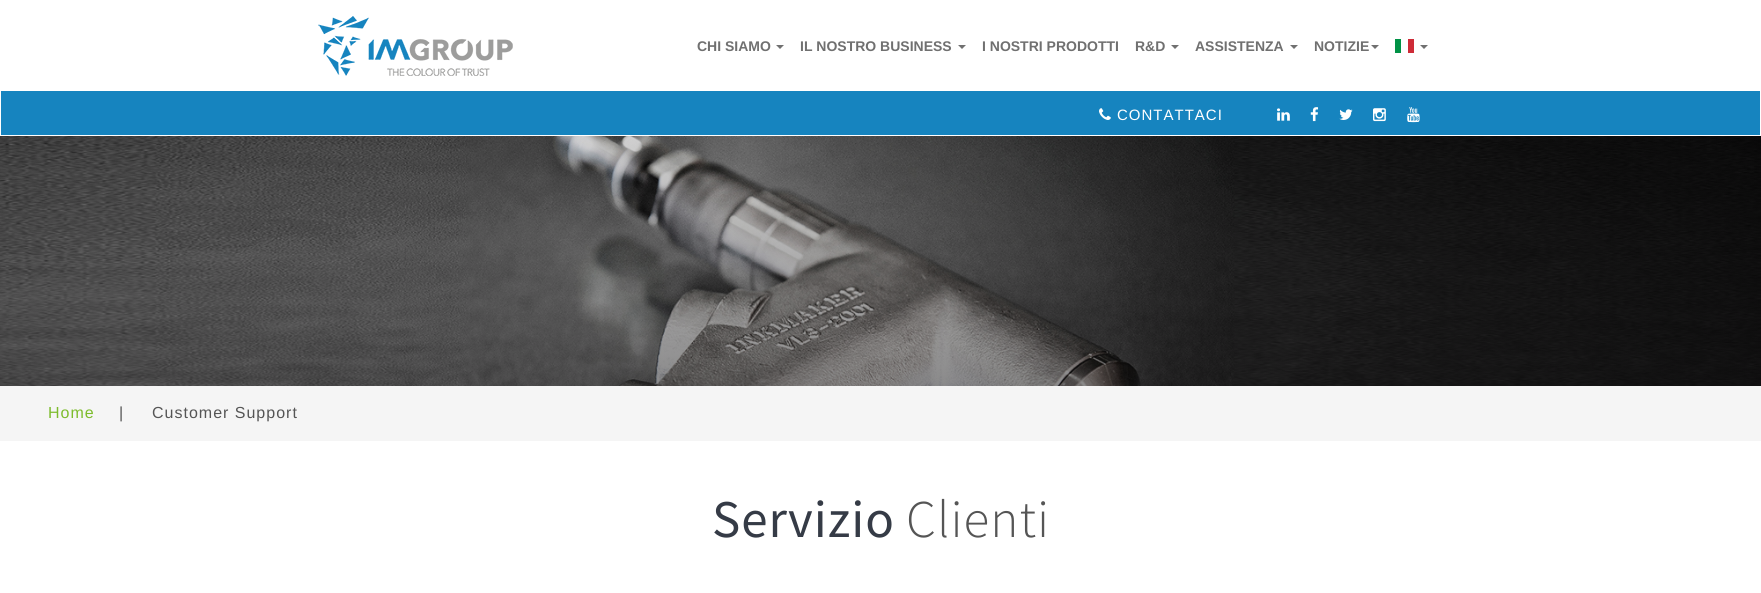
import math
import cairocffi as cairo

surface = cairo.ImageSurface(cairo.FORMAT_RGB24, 1761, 593)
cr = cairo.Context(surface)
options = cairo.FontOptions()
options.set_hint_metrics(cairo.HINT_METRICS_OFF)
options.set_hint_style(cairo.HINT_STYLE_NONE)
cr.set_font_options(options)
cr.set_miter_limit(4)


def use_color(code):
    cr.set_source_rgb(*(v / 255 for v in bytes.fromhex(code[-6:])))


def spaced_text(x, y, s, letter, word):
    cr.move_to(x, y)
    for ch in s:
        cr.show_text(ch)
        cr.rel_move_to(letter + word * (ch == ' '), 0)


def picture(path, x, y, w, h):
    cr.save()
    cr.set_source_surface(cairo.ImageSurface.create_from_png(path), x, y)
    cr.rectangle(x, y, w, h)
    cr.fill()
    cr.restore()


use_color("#ffffff")
cr.paint()
picture("img1.png", 318, 16, 195, 60)
cr.select_font_face("Liberation Sans", cairo.FONT_SLANT_NORMAL, cairo.FONT_WEIGHT_BOLD)
cr.set_font_size(14)
use_color("#707070")
cr.move_to(697, 51)
cr.show_text("CHI SIAMO")
cr.new_path()
cr.move_to(776, 45)
cr.line_to(784, 45)
cr.line_to(780, 49)
cr.close_path()
cr.fill()
cr.move_to(800, 51)
cr.show_text("IL NOSTRO BUSINESS")
cr.new_path()
cr.move_to(958, 45)
cr.line_to(966, 45)
cr.line_to(962, 49)
cr.close_path()
cr.fill()
cr.move_to(982, 51)
cr.show_text("I NOSTRI PRODOTTI")
cr.move_to(1135, 51)
cr.show_text("R&D")
cr.new_path()
cr.move_to(1171, 45)
cr.line_to(1179, 45)
cr.line_to(1175, 49)
cr.close_path()
cr.fill()
cr.move_to(1195, 51)
cr.show_text("ASSISTENZA")
cr.new_path()
cr.move_to(1290, 45)
cr.line_to(1298, 45)
cr.line_to(1294, 49)
cr.close_path()
cr.fill()
cr.move_to(1314, 51)
cr.show_text("NOTIZIE")
cr.new_path()
cr.move_to(1371, 45)
cr.line_to(1379, 45)
cr.line_to(1375, 49)
cr.close_path()
cr.move_to(1420, 45)
cr.line_to(1428, 45)
cr.line_to(1424, 49)
cr.close_path()
cr.fill()
use_color("#009246")
cr.rectangle(1395, 39, 6, 14)
cr.fill()
use_color("#ce2b37")
cr.rectangle(1408, 39, 6, 14)
cr.fill()
use_color("#1684bf")
cr.rectangle(1, 91, 1759, 44)
cr.fill()
picture("img2.png", 1099, 108, 12, 12)
cr.select_font_face("Liberation Sans")
cr.set_font_size(15)
use_color("#ffffff")
spaced_text(1117, 120, "CONTATTACI", 1, 0)
picture("img3.png", 1277, 108, 13, 13)
picture("img4.png", 1310, 107, 9, 15)
picture("img5.png", 1339, 109, 14, 11)
picture("img6.png", 1373, 108, 13, 14)
picture("img7.png", 1407, 107, 13, 16)
picture("img8.png", 0, 136, 1761, 250)
use_color("#f5f5f5")
cr.rectangle(0, 386, 1761, 55)
cr.fill()
cr.set_font_size(16)
use_color("#7dbc2d")
spaced_text(48, 418, "Home", 1, 0)
use_color("#555555")
spaced_text(119, 418, "|", 1, 0)
spaced_text(152, 418, "Customer Support", 1, 0)
cr.select_font_face("Source Sans Pro")
cr.set_font_size(53)
use_color("#353b46")
spaced_text(712, 537, "Servizio", 1, 0)
cr.select_font_face("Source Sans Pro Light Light")
use_color("#555555")
spaced_text(906, 537, "Clienti", 1, 0)
surface.write_to_png("result.png")
